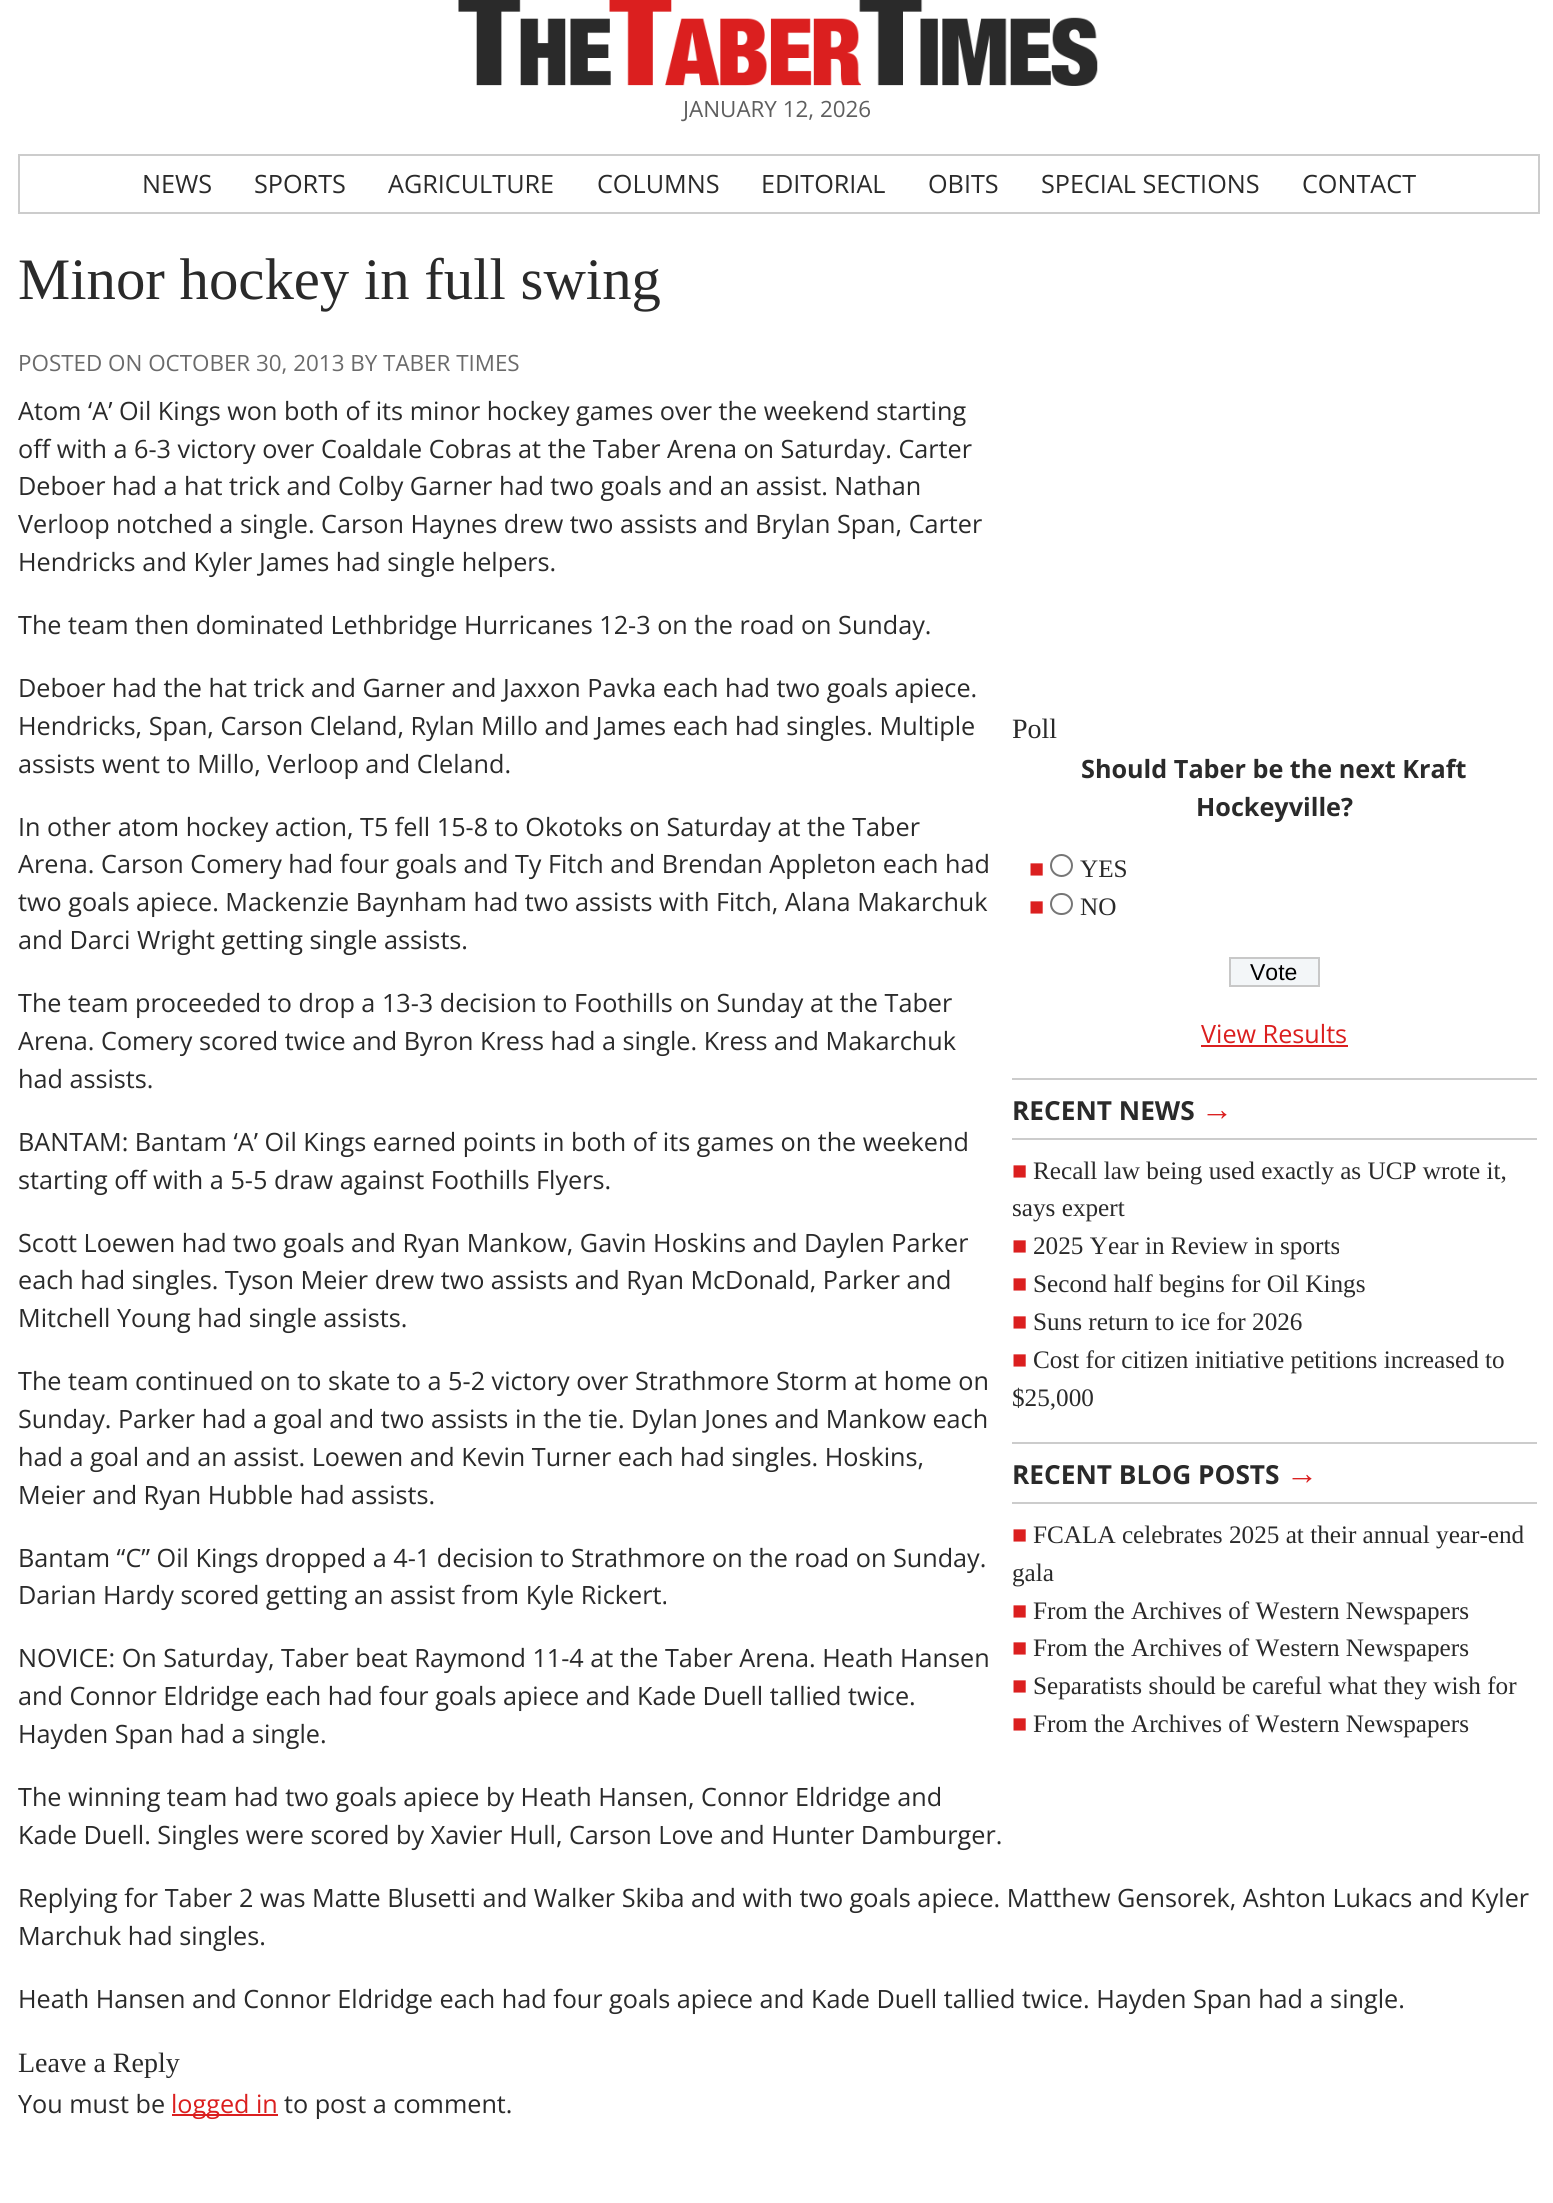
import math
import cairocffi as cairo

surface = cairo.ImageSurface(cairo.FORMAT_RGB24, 1553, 2203)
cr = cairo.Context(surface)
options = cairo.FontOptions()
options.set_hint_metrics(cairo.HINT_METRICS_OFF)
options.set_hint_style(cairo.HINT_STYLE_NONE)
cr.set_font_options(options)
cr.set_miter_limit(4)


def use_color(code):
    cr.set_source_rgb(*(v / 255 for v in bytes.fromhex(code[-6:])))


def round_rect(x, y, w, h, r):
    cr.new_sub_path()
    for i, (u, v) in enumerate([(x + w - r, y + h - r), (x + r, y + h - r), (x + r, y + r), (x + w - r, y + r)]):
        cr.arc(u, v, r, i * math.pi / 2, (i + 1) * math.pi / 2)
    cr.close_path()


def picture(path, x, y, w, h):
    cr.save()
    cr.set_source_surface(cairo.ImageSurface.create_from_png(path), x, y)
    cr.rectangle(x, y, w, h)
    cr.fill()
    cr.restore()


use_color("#ffffff")
cr.paint()
picture("img1.png", 458, 0, 640, 86)
cr.select_font_face("Open Sans")
cr.set_font_size(22.4)
use_color("#5e5e5e")
cr.move_to(683, 117)
cr.show_text("JANUARY 12, 2026")
cr.rectangle(19, 155, 1520, 58)
use_color("#cccccc")
cr.stroke()
cr.set_font_size(25.2)
use_color("#2a2a2a")
cr.move_to(142, 193)
cr.show_text("NEWS")
cr.move_to(254, 193)
cr.show_text("SPORTS")
cr.move_to(388, 193)
cr.show_text("AGRICULTURE")
cr.move_to(597, 193)
cr.show_text("COLUMNS")
cr.move_to(761, 193)
cr.show_text("EDITORIAL")
cr.move_to(928, 193)
cr.show_text("OBITS")
cr.move_to(1041, 193)
cr.show_text("SPECIAL SECTIONS")
cr.move_to(1302, 193)
cr.show_text("CONTACT")
cr.select_font_face("Liberation Serif")
cr.set_font_size(58.75)
cr.move_to(18, 299)
cr.show_text("Minor hockey in full swing")
cr.select_font_face("Open Sans")
cr.set_font_size(22.4)
use_color("#6a6a6a")
cr.move_to(18, 371)
cr.show_text("POSTED ON OCTOBER 30, 2013 BY TABER TIMES")
cr.set_font_size(25.2)
use_color("#2a2a2a")
cr.move_to(18, 420)
cr.show_text("Atom ‘A’ Oil Kings won both of its minor hockey games over the weekend starting")
cr.move_to(18, 458)
cr.show_text("off with a 6-3 victory over Coaldale Cobras at the Taber Arena on Saturday. Carter")
cr.move_to(18, 495)
cr.show_text("Deboer had a hat trick and Colby Garner had two goals and an assist. Nathan")
cr.move_to(18, 533)
cr.show_text("Verloop notched a single. Carson Haynes drew two assists and Brylan Span, Carter")
cr.move_to(18, 571)
cr.show_text("Hendricks and Kyler James had single helpers.")
cr.move_to(18, 634)
cr.show_text("The team then dominated Lethbridge Hurricanes 12-3 on the road on Sunday.")
cr.move_to(18, 697)
cr.show_text("Deboer had the hat trick and Garner and Jaxxon Pavka each had two goals apiece.")
cr.move_to(18, 735)
cr.show_text("Hendricks, Span, Carson Cleland, Rylan Millo and James each had singles. Multiple")
cr.move_to(18, 773)
cr.show_text("assists went to Millo, Verloop and Cleland.")
cr.move_to(18, 836)
cr.show_text("In other atom hockey action, T5 fell 15-8 to Okotoks on Saturday at the Taber")
cr.move_to(18, 873)
cr.show_text("Arena. Carson Comery had four goals and Ty Fitch and Brendan Appleton each had")
cr.move_to(18, 911)
cr.show_text("two goals apiece. Mackenzie Baynham had two assists with Fitch, Alana Makarchuk")
cr.move_to(18, 949)
cr.show_text("and Darci Wright getting single assists.")
cr.move_to(18, 1012)
cr.show_text("The team proceeded to drop a 13-3 decision to Foothills on Sunday at the Taber")
cr.move_to(18, 1050)
cr.show_text("Arena. Comery scored twice and Byron Kress had a single. Kress and Makarchuk")
cr.move_to(18, 1088)
cr.show_text("had assists.")
cr.move_to(18, 1151)
cr.show_text("BANTAM: Bantam ‘A’ Oil Kings earned points in both of its games on the weekend")
cr.move_to(18, 1189)
cr.show_text("starting off with a 5-5 draw against Foothills Flyers.")
cr.move_to(18, 1252)
cr.show_text("Scott Loewen had two goals and Ryan Mankow, Gavin Hoskins and Daylen Parker")
cr.move_to(18, 1289)
cr.show_text("each had singles. Tyson Meier drew two assists and Ryan McDonald, Parker and")
cr.move_to(18, 1327)
cr.show_text("Mitchell Young had single assists.")
cr.move_to(18, 1390)
cr.show_text("The team continued on to skate to a 5-2 victory over Strathmore Storm at home on")
cr.move_to(18, 1428)
cr.show_text("Sunday. Parker had a goal and two assists in the tie. Dylan Jones and Mankow each")
cr.move_to(18, 1466)
cr.show_text("had a goal and an assist. Loewen and Kevin Turner each had singles. Hoskins,")
cr.move_to(18, 1504)
cr.show_text("Meier and Ryan Hubble had assists.")
cr.move_to(18, 1567)
cr.show_text("Bantam “C” Oil Kings dropped a 4-1 decision to Strathmore on the road on Sunday.")
cr.move_to(18, 1604)
cr.show_text("Darian Hardy scored getting an assist from Kyle Rickert.")
cr.move_to(18, 1667)
cr.show_text("NOVICE: On Saturday, Taber beat Raymond 11-4 at the Taber Arena. Heath Hansen")
cr.move_to(18, 1705)
cr.show_text("and Connor Eldridge each had four goals apiece and Kade Duell tallied twice.")
cr.move_to(18, 1743)
cr.show_text("Hayden Span had a single.")
cr.move_to(18, 1806)
cr.show_text("The winning team had two goals apiece by Heath Hansen, Connor Eldridge and")
cr.move_to(18, 1844)
cr.show_text("Kade Duell. Singles were scored by Xavier Hull, Carson Love and Hunter Damburger.")
cr.move_to(18, 1907)
cr.show_text("Replying for Taber 2 was Matte Blusetti and Walker Skiba and with two goals apiece. Matthew Gensorek, Ashton Lukacs and Kyler")
cr.move_to(18, 1945)
cr.show_text("Marchuk had singles.")
cr.move_to(18, 2008)
cr.show_text("Heath Hansen and Connor Eldridge each had four goals apiece and Kade Duell tallied twice. Hayden Span had a single.")
cr.select_font_face("Liberation Serif")
cr.set_font_size(28)
cr.move_to(18, 2072)
cr.show_text("Leave a Reply")
cr.select_font_face("Open Sans")
cr.set_font_size(25.2)
cr.move_to(18, 2113)
cr.show_text("You must be")
use_color("#db1f1f")
cr.rectangle(172, 2114, 106, 2)
cr.fill()
cr.move_to(171, 2113)
cr.show_text("logged in")
use_color("#2a2a2a")
cr.move_to(284, 2113)
cr.show_text("to post a comment.")
cr.select_font_face("Liberation Serif")
cr.set_font_size(28)
cr.move_to(1012, 738)
cr.show_text("Poll")
cr.select_font_face("Open Sans", cairo.FONT_SLANT_NORMAL, cairo.FONT_WEIGHT_BOLD)
cr.set_font_size(25.2)
cr.move_to(1081, 778)
cr.show_text("Should Taber be the next Kraft")
cr.move_to(1196, 816)
cr.show_text("Hockeyville?")
cr.select_font_face("Liberation Serif")
use_color("#db1f1f")
cr.move_to(1029, 877)
cr.show_text("■")
cr.new_path()
cr.arc(1061.5, 865.5, 10.5, 0, 2 * math.pi)
use_color("#767676")
cr.stroke()
use_color("#2a2a2a")
cr.move_to(1080, 877)
cr.show_text("YES")
use_color("#db1f1f")
cr.move_to(1029, 915)
cr.show_text("■")
round_rect(1051, 894, 21, 20, 10)
use_color("#767676")
cr.stroke()
use_color("#2a2a2a")
cr.move_to(1080, 915)
cr.show_text("NO")
use_color("#f3f6f8")
cr.rectangle(1230, 958, 89, 28)
cr.fill_preserve()
use_color("#c8c8c8")
cr.stroke()
cr.select_font_face("Liberation Sans")
cr.set_font_size(23)
use_color("#000000")
cr.move_to(1250, 980)
cr.show_text("Vote")
cr.select_font_face("Open Sans")
cr.set_font_size(25.2)
use_color("#db1f1f")
cr.move_to(1201, 1043)
cr.show_text("View Results")
cr.rectangle(1201, 1045, 147, 2)
cr.fill()
use_color("#cccccc")
cr.rectangle(1012, 1078, 525, 2)
cr.fill()
cr.rectangle(1012, 1138, 525, 2)
cr.fill()
cr.select_font_face("Open Sans", cairo.FONT_SLANT_NORMAL, cairo.FONT_WEIGHT_BOLD)
cr.set_font_size(26.25)
use_color("#2a2a2a")
cr.move_to(1012, 1120)
cr.show_text("RECENT NEWS")
cr.select_font_face("Liberation Sans", cairo.FONT_SLANT_NORMAL, cairo.FONT_WEIGHT_BOLD)
cr.set_font_size(32)
use_color("#db1f1f")
cr.move_to(1201, 1120)
cr.show_text("→")
cr.select_font_face("Liberation Serif")
cr.set_font_size(25.2)
cr.move_to(1012, 1179)
cr.show_text("■")
use_color("#2a2a2a")
cr.move_to(1033, 1179)
cr.show_text("Recall law being used exactly as UCP wrote it,")
cr.move_to(1012, 1216)
cr.show_text("says expert")
use_color("#db1f1f")
cr.move_to(1012, 1254)
cr.show_text("■")
use_color("#2a2a2a")
cr.move_to(1033, 1254)
cr.show_text("2025 Year in Review in sports")
use_color("#db1f1f")
cr.move_to(1012, 1292)
cr.show_text("■")
use_color("#2a2a2a")
cr.move_to(1033, 1292)
cr.show_text("Second half begins for Oil Kings")
use_color("#db1f1f")
cr.move_to(1012, 1330)
cr.show_text("■")
use_color("#2a2a2a")
cr.move_to(1033, 1330)
cr.show_text("Suns return to ice for 2026")
use_color("#db1f1f")
cr.move_to(1012, 1368)
cr.show_text("■")
use_color("#2a2a2a")
cr.move_to(1033, 1368)
cr.show_text("Cost for citizen initiative petitions increased to")
cr.move_to(1012, 1406)
cr.show_text("$25,000")
use_color("#cccccc")
cr.rectangle(1012, 1442, 525, 2)
cr.fill()
cr.rectangle(1012, 1502, 525, 2)
cr.fill()
cr.select_font_face("Open Sans", cairo.FONT_SLANT_NORMAL, cairo.FONT_WEIGHT_BOLD)
cr.set_font_size(26.25)
use_color("#2a2a2a")
cr.move_to(1012, 1484)
cr.show_text("RECENT BLOG POSTS")
cr.select_font_face("Liberation Sans", cairo.FONT_SLANT_NORMAL, cairo.FONT_WEIGHT_BOLD)
cr.set_font_size(32)
use_color("#db1f1f")
cr.move_to(1286, 1484)
cr.show_text("→")
cr.select_font_face("Liberation Serif")
cr.set_font_size(25.2)
cr.move_to(1012, 1543)
cr.show_text("■")
use_color("#2a2a2a")
cr.move_to(1033, 1543)
cr.show_text("FCALA celebrates 2025 at their annual year-end")
cr.move_to(1012, 1581)
cr.show_text("gala")
use_color("#db1f1f")
cr.move_to(1012, 1619)
cr.show_text("■")
use_color("#2a2a2a")
cr.move_to(1033, 1619)
cr.show_text("From the Archives of Western Newspapers")
use_color("#db1f1f")
cr.move_to(1012, 1656)
cr.show_text("■")
use_color("#2a2a2a")
cr.move_to(1033, 1656)
cr.show_text("From the Archives of Western Newspapers")
use_color("#db1f1f")
cr.move_to(1012, 1694)
cr.show_text("■")
use_color("#2a2a2a")
cr.move_to(1033, 1694)
cr.show_text("Separatists should be careful what they wish for")
use_color("#db1f1f")
cr.move_to(1012, 1732)
cr.show_text("■")
use_color("#2a2a2a")
cr.move_to(1033, 1732)
cr.show_text("From the Archives of Western Newspapers")
surface.write_to_png("result.png")
